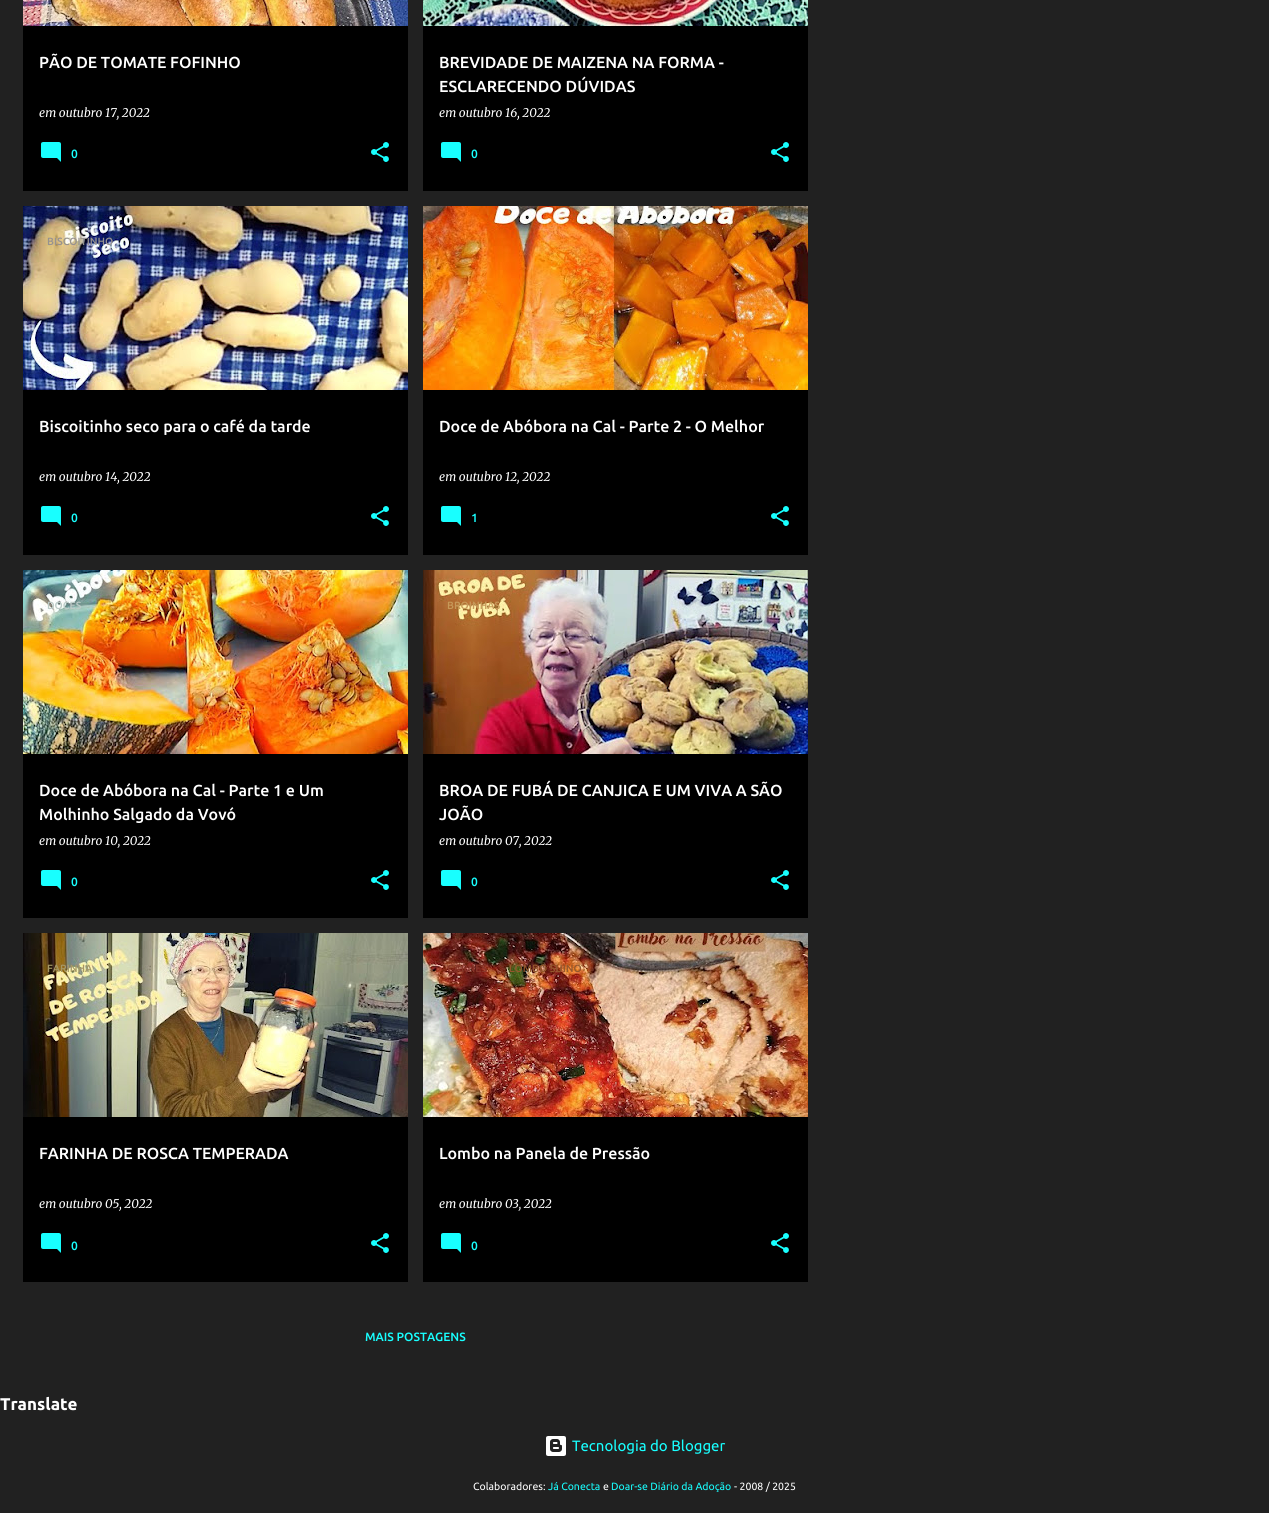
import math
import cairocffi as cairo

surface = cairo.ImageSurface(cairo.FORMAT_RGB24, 1269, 1513)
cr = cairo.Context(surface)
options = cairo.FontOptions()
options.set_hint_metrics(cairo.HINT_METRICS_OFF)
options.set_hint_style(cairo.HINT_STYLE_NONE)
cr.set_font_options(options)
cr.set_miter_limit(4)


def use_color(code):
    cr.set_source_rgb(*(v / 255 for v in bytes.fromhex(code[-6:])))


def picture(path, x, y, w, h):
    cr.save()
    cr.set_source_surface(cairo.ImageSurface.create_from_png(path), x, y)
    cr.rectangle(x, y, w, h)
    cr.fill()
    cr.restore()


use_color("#212121")
cr.paint()
use_color("#000000")
cr.rectangle(23, 26, 385, 165)
cr.fill()
picture("img1.png", 23, 0, 385, 26)
cr.select_font_face("Ubuntu Medium")
cr.set_font_size(16)
use_color("#ffffff")
cr.move_to(39, 68)
cr.show_text("PÃO DE TOMATE FOFINHO")
cr.select_font_face("Merriweather", cairo.FONT_SLANT_ITALIC)
cr.set_font_size(12)
cr.move_to(39, 117)
cr.show_text("em outubro 17, 2022")
picture("img2.png", 41, 142, 20, 20)
cr.select_font_face("Ubuntu Medium")
use_color("#18ffff")
cr.move_to(71, 158)
cr.show_text("0")
picture("img3.png", 371, 142, 18, 20)
use_color("#000000")
cr.rectangle(423, 26, 385, 165)
cr.fill()
picture("img4.png", 423, 0, 385, 26)
cr.set_font_size(16)
use_color("#ffffff")
cr.move_to(439, 68)
cr.show_text("BREVIDADE DE MAIZENA NA FORMA -")
cr.move_to(439, 92)
cr.show_text("ESCLARECENDO DÚVIDAS")
cr.select_font_face("Merriweather", cairo.FONT_SLANT_ITALIC)
cr.set_font_size(12)
cr.move_to(439, 117)
cr.show_text("em outubro 16, 2022")
picture("img2.png", 441, 142, 20, 20)
cr.select_font_face("Ubuntu Medium")
use_color("#18ffff")
cr.move_to(471, 158)
cr.show_text("0")
picture("img3.png", 771, 142, 18, 20)
use_color("#000000")
cr.rectangle(23, 390, 385, 165)
cr.fill()
picture("img5.png", 23, 206, 385, 184)
cr.set_font_size(10.5)
use_color("#979290")
cr.move_to(47, 245)
cr.show_text("BISCOITINHO")
cr.select_font_face("Merriweather", cairo.FONT_SLANT_ITALIC)
cr.set_font_size(12)
use_color("#ffffff")
cr.move_to(39, 481)
cr.show_text("em outubro 14, 2022")
cr.select_font_face("Ubuntu Medium")
cr.set_font_size(16)
cr.move_to(39, 432)
cr.show_text("Biscoitinho seco para o café da tarde")
picture("img2.png", 41, 506, 20, 20)
cr.set_font_size(12)
use_color("#18ffff")
cr.move_to(71, 522)
cr.show_text("0")
picture("img3.png", 371, 506, 18, 20)
use_color("#000000")
cr.rectangle(423, 390, 385, 165)
cr.fill()
picture("img6.png", 423, 206, 385, 184)
cr.set_font_size(16)
use_color("#ffffff")
cr.move_to(439, 432)
cr.show_text("Doce de Abóbora na Cal - Parte 2 - O Melhor")
cr.select_font_face("Merriweather", cairo.FONT_SLANT_ITALIC)
cr.set_font_size(12)
cr.move_to(439, 481)
cr.show_text("em outubro 12, 2022")
picture("img2.png", 441, 506, 20, 20)
cr.select_font_face("Ubuntu Medium")
use_color("#18ffff")
cr.move_to(471, 522)
cr.show_text("1")
picture("img3.png", 771, 506, 18, 20)
use_color("#000000")
cr.rectangle(23, 754, 385, 164)
cr.fill()
picture("img7.png", 23, 570, 385, 184)
cr.set_font_size(10.5)
use_color("#bccbc7")
cr.move_to(47, 609)
cr.show_text("DOCES")
cr.select_font_face("Merriweather", cairo.FONT_SLANT_ITALIC)
cr.set_font_size(12)
use_color("#ffffff")
cr.move_to(39, 845)
cr.show_text("em outubro 10, 2022")
cr.select_font_face("Ubuntu Medium")
cr.set_font_size(16)
cr.move_to(39, 796)
cr.show_text("Doce de Abóbora na Cal - Parte 1 e Um")
cr.move_to(39, 820)
cr.show_text("Molhinho Salgado da Vovó")
picture("img2.png", 41, 870, 20, 20)
cr.set_font_size(12)
use_color("#18ffff")
cr.move_to(71, 886)
cr.show_text("0")
picture("img3.png", 371, 870, 18, 20)
use_color("#000000")
cr.rectangle(423, 754, 385, 164)
cr.fill()
picture("img8.png", 423, 570, 385, 184)
cr.set_font_size(10.5)
use_color("#c79959")
cr.move_to(447, 609)
cr.show_text("BROINHAS")
cr.select_font_face("Merriweather", cairo.FONT_SLANT_ITALIC)
cr.set_font_size(12)
use_color("#ffffff")
cr.move_to(439, 845)
cr.show_text("em outubro 07, 2022")
cr.select_font_face("Ubuntu Medium")
cr.set_font_size(16)
cr.move_to(439, 796)
cr.show_text("BROA DE FUBÁ DE CANJICA E UM VIVA A SÃO")
cr.move_to(439, 820)
cr.show_text("JOÃO")
picture("img2.png", 441, 870, 20, 20)
cr.set_font_size(12)
use_color("#18ffff")
cr.move_to(471, 886)
cr.show_text("0")
picture("img3.png", 771, 870, 18, 20)
use_color("#000000")
cr.rectangle(23, 1117, 385, 165)
cr.fill()
picture("img9.png", 23, 933, 385, 184)
cr.set_font_size(10.5)
use_color("#a59866")
cr.move_to(47, 972)
cr.show_text("FARINHA")
cr.select_font_face("Merriweather", cairo.FONT_SLANT_ITALIC)
cr.set_font_size(12)
use_color("#ffffff")
cr.move_to(39, 1208)
cr.show_text("em outubro 05, 2022")
cr.select_font_face("Ubuntu Medium")
cr.set_font_size(16)
cr.move_to(39, 1159)
cr.show_text("FARINHA DE ROSCA TEMPERADA")
picture("img2.png", 41, 1233, 20, 20)
cr.set_font_size(12)
use_color("#18ffff")
cr.move_to(71, 1250)
cr.show_text("0")
picture("img3.png", 371, 1233, 18, 20)
use_color("#000000")
cr.rectangle(423, 1117, 385, 165)
cr.fill()
picture("img10.png", 423, 933, 385, 184)
cr.set_font_size(10.5)
use_color("#883529")
cr.move_to(447, 972)
cr.show_text("CARNES")
use_color("#93572d")
cr.move_to(509, 972)
cr.show_text("LOMBO SUINO")
cr.select_font_face("Merriweather", cairo.FONT_SLANT_ITALIC)
cr.set_font_size(12)
use_color("#ffffff")
cr.move_to(439, 1208)
cr.show_text("em outubro 03, 2022")
cr.select_font_face("Ubuntu Medium")
cr.set_font_size(16)
cr.move_to(439, 1159)
cr.show_text("Lombo na Panela de Pressão")
picture("img2.png", 441, 1233, 20, 20)
cr.set_font_size(12)
use_color("#18ffff")
cr.move_to(471, 1250)
cr.show_text("0")
picture("img3.png", 771, 1233, 18, 20)
cr.move_to(365, 1341)
cr.show_text("MAIS POSTAGENS")
cr.select_font_face("Ubuntu", cairo.FONT_SLANT_NORMAL, cairo.FONT_WEIGHT_BOLD)
cr.set_font_size(17)
use_color("#ffffff")
cr.move_to(0, 1410)
cr.show_text("Translate")
picture("img11.png", 546, 1436, 20, 20)
cr.select_font_face("Ubuntu")
cr.set_font_size(15)
use_color("#18ffff")
cr.move_to(572, 1451)
cr.show_text("Tecnologia do Blogger")
cr.set_font_size(10.5)
use_color("#ffffff")
cr.move_to(473, 1490)
cr.show_text("Colaboradores:")
use_color("#18ffff")
cr.move_to(548, 1490)
cr.show_text("Já Conecta")
use_color("#ffffff")
cr.move_to(603, 1490)
cr.show_text("e")
use_color("#18ffff")
cr.move_to(611, 1490)
cr.show_text("Doar-se Diário da Adoção")
use_color("#ffffff")
cr.move_to(734, 1490)
cr.show_text("- 2008 / 2025")
surface.write_to_png("result.png")
